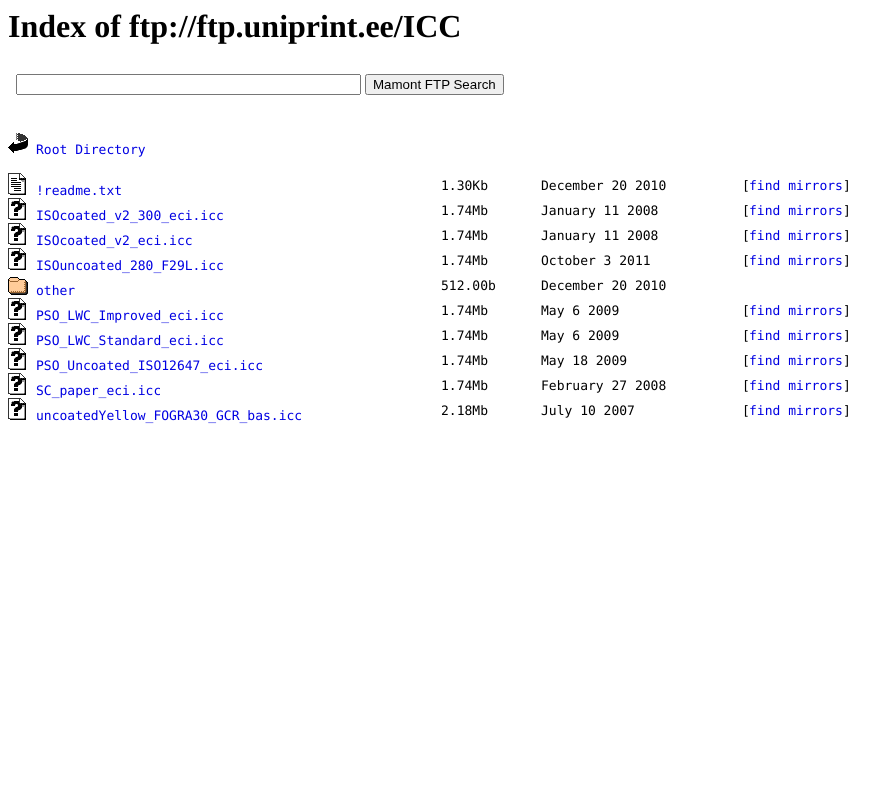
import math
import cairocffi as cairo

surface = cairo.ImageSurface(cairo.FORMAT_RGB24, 875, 801)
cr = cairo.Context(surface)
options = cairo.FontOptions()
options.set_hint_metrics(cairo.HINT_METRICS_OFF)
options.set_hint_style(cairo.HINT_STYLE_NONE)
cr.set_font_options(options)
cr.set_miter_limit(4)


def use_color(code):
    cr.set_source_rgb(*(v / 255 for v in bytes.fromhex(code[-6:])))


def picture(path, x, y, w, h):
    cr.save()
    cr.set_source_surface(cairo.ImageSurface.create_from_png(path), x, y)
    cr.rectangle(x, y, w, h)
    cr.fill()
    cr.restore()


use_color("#ffffff")
cr.paint()
cr.select_font_face("Liberation Serif", cairo.FONT_SLANT_NORMAL, cairo.FONT_WEIGHT_BOLD)
cr.set_font_size(32)
use_color("#000000")
cr.move_to(8, 37)
cr.show_text("Index of ftp://ftp.uniprint.ee/ICC")
picture("img1.png", 16, 74, 488, 21)
picture("img2.png", 8, 133, 20, 20)
cr.select_font_face("DejaVu Sans Mono")
cr.set_font_size(13)
use_color("#0000e2")
cr.move_to(36, 154)
cr.show_text("Root Directory")
picture("img3.png", 8, 173, 18, 22)
cr.move_to(36, 195)
cr.show_text("!readme.txt")
use_color("#000000")
cr.move_to(441, 190)
cr.show_text("1.30Kb")
cr.move_to(541, 190)
cr.show_text("December 20 2010")
cr.move_to(742, 190)
cr.show_text("[")
use_color("#0000e2")
cr.move_to(749, 190)
cr.show_text("find mirrors")
use_color("#000000")
cr.move_to(843, 190)
cr.show_text("]")
picture("img4.png", 8, 198, 18, 22)
use_color("#0000e2")
cr.move_to(36, 220)
cr.show_text("ISOcoated_v2_300_eci.icc")
use_color("#000000")
cr.move_to(441, 215)
cr.show_text("1.74Mb")
cr.move_to(541, 215)
cr.show_text("January 11 2008")
cr.move_to(742, 215)
cr.show_text("[")
use_color("#0000e2")
cr.move_to(749, 215)
cr.show_text("find mirrors")
use_color("#000000")
cr.move_to(843, 215)
cr.show_text("]")
picture("img4.png", 8, 223, 18, 22)
use_color("#0000e2")
cr.move_to(36, 245)
cr.show_text("ISOcoated_v2_eci.icc")
use_color("#000000")
cr.move_to(441, 240)
cr.show_text("1.74Mb")
cr.move_to(541, 240)
cr.show_text("January 11 2008")
cr.move_to(742, 240)
cr.show_text("[")
use_color("#0000e2")
cr.move_to(749, 240)
cr.show_text("find mirrors")
use_color("#000000")
cr.move_to(843, 240)
cr.show_text("]")
picture("img4.png", 8, 248, 18, 22)
use_color("#0000e2")
cr.move_to(36, 270)
cr.show_text("ISOuncoated_280_F29L.icc")
use_color("#000000")
cr.move_to(441, 265)
cr.show_text("1.74Mb")
cr.move_to(541, 265)
cr.show_text("October 3 2011")
cr.move_to(742, 265)
cr.show_text("[")
use_color("#0000e2")
cr.move_to(749, 265)
cr.show_text("find mirrors")
use_color("#000000")
cr.move_to(843, 265)
cr.show_text("]")
picture("img5.png", 8, 277, 20, 18)
use_color("#0000e2")
cr.move_to(36, 295)
cr.show_text("other")
use_color("#000000")
cr.move_to(441, 290)
cr.show_text("512.00b")
cr.move_to(541, 290)
cr.show_text("December 20 2010")
picture("img4.png", 8, 298, 18, 22)
use_color("#0000e2")
cr.move_to(36, 320)
cr.show_text("PSO_LWC_Improved_eci.icc")
use_color("#000000")
cr.move_to(441, 315)
cr.show_text("1.74Mb")
cr.move_to(541, 315)
cr.show_text("May 6 2009")
cr.move_to(742, 315)
cr.show_text("[")
use_color("#0000e2")
cr.move_to(749, 315)
cr.show_text("find mirrors")
use_color("#000000")
cr.move_to(843, 315)
cr.show_text("]")
picture("img4.png", 8, 323, 18, 22)
use_color("#0000e2")
cr.move_to(36, 345)
cr.show_text("PSO_LWC_Standard_eci.icc")
use_color("#000000")
cr.move_to(441, 340)
cr.show_text("1.74Mb")
cr.move_to(541, 340)
cr.show_text("May 6 2009")
cr.move_to(742, 340)
cr.show_text("[")
use_color("#0000e2")
cr.move_to(749, 340)
cr.show_text("find mirrors")
use_color("#000000")
cr.move_to(843, 340)
cr.show_text("]")
picture("img4.png", 8, 348, 18, 22)
use_color("#0000e2")
cr.move_to(36, 370)
cr.show_text("PSO_Uncoated_ISO12647_eci.icc")
use_color("#000000")
cr.move_to(441, 365)
cr.show_text("1.74Mb")
cr.move_to(541, 365)
cr.show_text("May 18 2009")
cr.move_to(742, 365)
cr.show_text("[")
use_color("#0000e2")
cr.move_to(749, 365)
cr.show_text("find mirrors")
use_color("#000000")
cr.move_to(843, 365)
cr.show_text("]")
picture("img4.png", 8, 373, 18, 22)
use_color("#0000e2")
cr.move_to(36, 395)
cr.show_text("SC_paper_eci.icc")
use_color("#000000")
cr.move_to(441, 390)
cr.show_text("1.74Mb")
cr.move_to(541, 390)
cr.show_text("February 27 2008")
cr.move_to(742, 390)
cr.show_text("[")
use_color("#0000e2")
cr.move_to(749, 390)
cr.show_text("find mirrors")
use_color("#000000")
cr.move_to(843, 390)
cr.show_text("]")
picture("img4.png", 8, 398, 18, 22)
use_color("#0000e2")
cr.move_to(36, 420)
cr.show_text("uncoatedYellow_FOGRA30_GCR_bas.icc")
use_color("#000000")
cr.move_to(441, 415)
cr.show_text("2.18Mb")
cr.move_to(541, 415)
cr.show_text("July 10 2007")
cr.move_to(742, 415)
cr.show_text("[")
use_color("#0000e2")
cr.move_to(749, 415)
cr.show_text("find mirrors")
use_color("#000000")
cr.move_to(843, 415)
cr.show_text("]")
surface.write_to_png("result.png")
